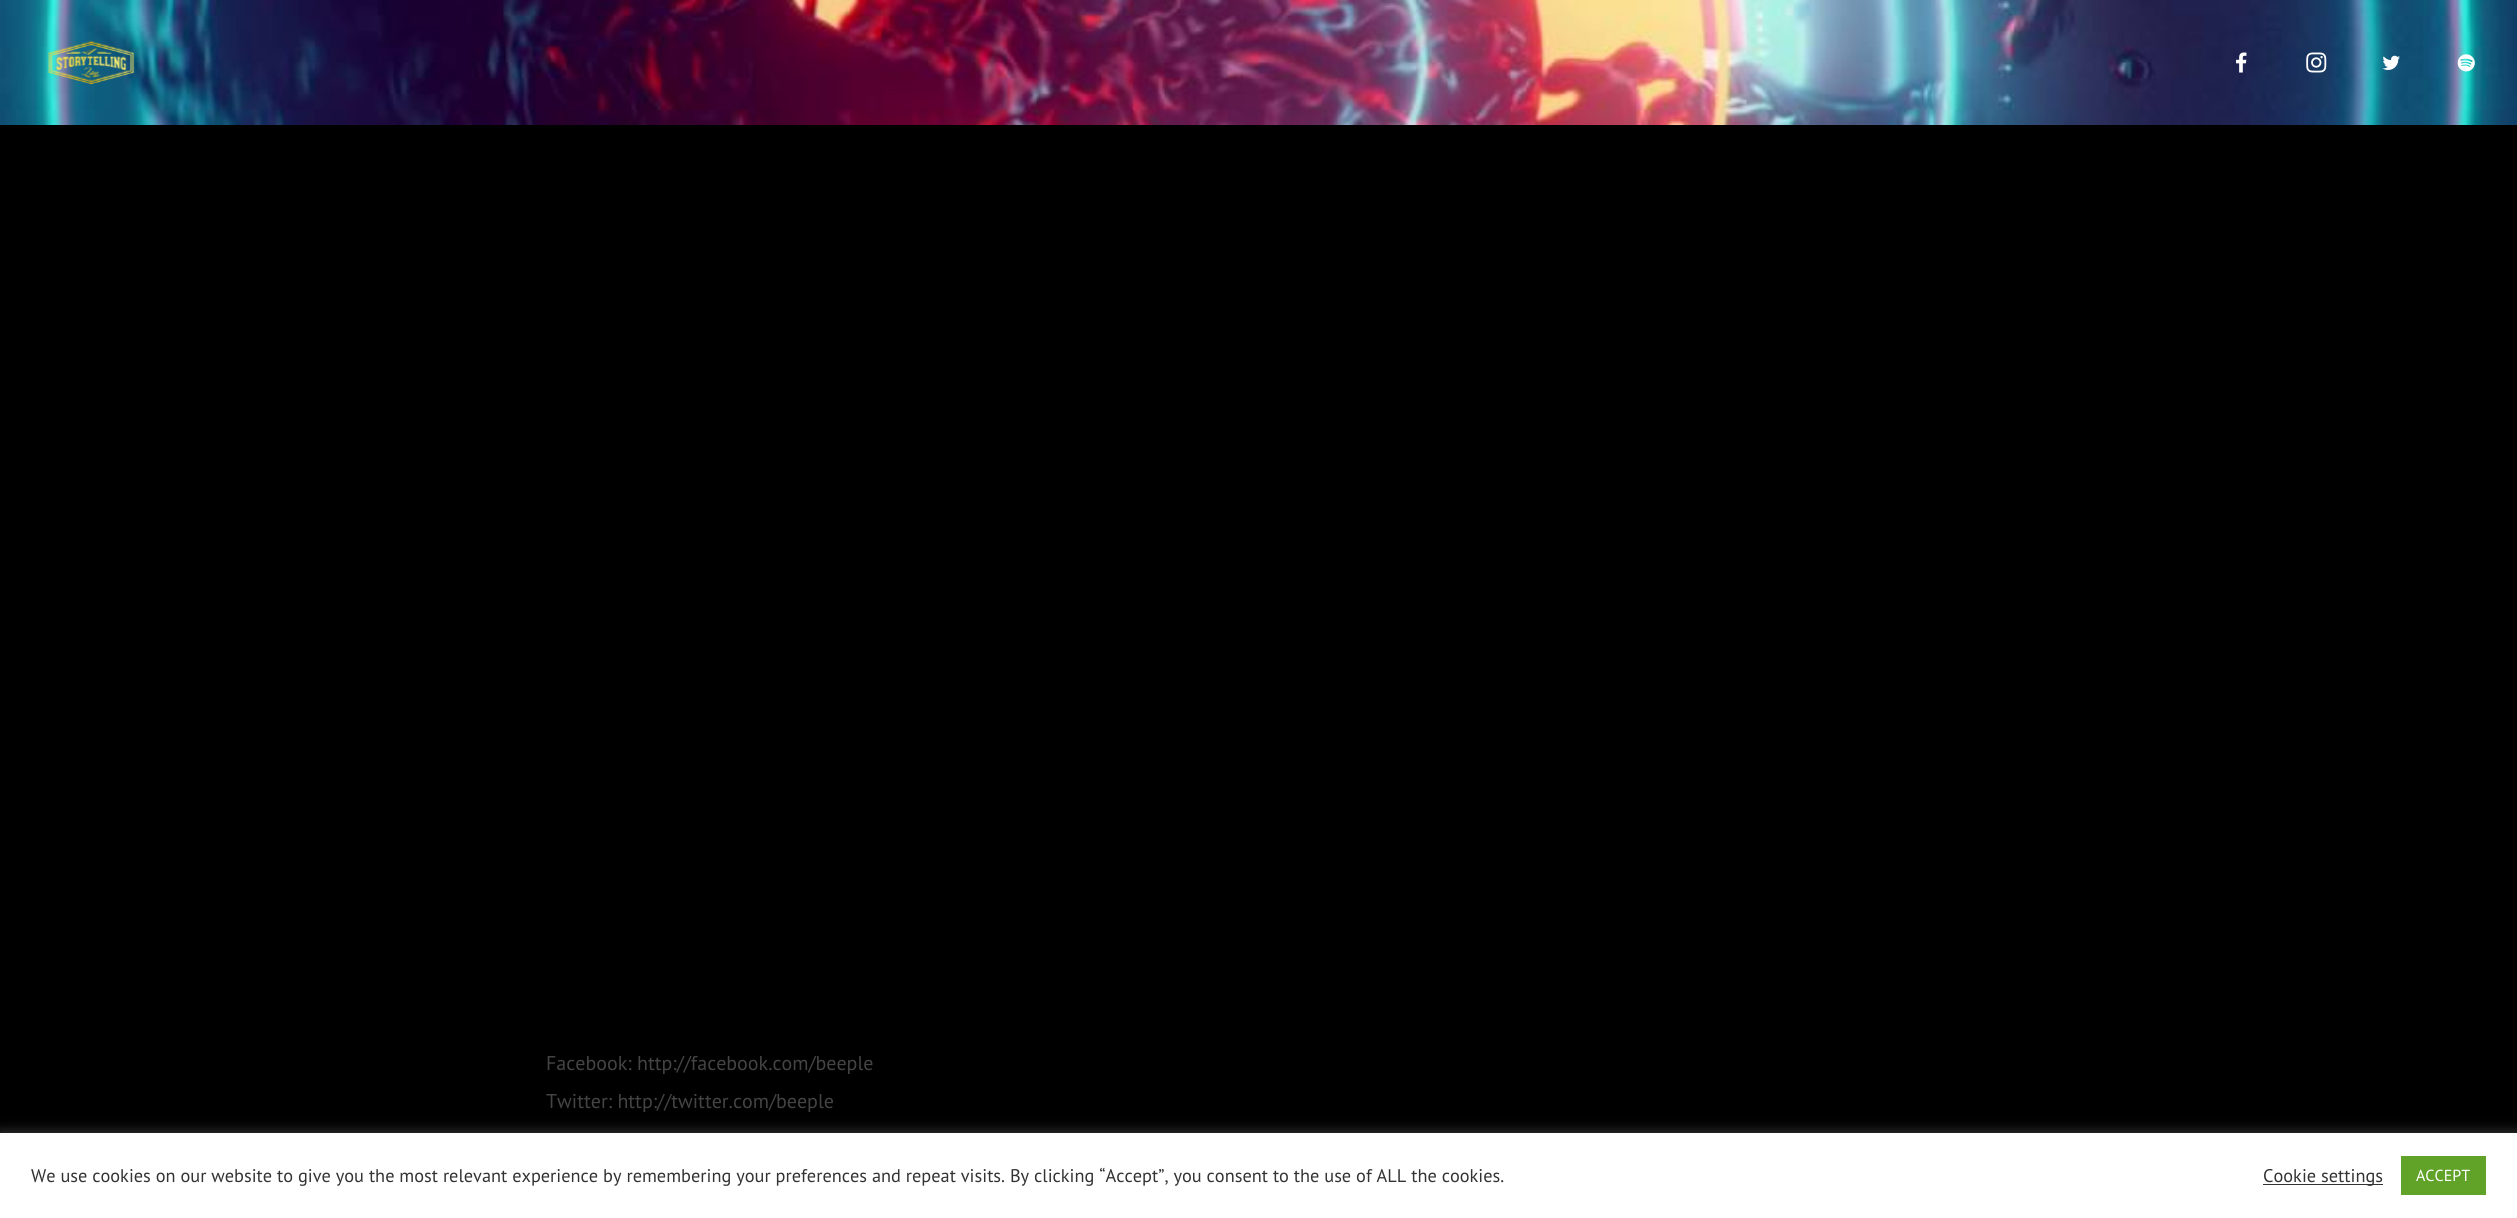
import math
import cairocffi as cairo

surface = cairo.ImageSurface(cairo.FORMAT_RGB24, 2517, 1218)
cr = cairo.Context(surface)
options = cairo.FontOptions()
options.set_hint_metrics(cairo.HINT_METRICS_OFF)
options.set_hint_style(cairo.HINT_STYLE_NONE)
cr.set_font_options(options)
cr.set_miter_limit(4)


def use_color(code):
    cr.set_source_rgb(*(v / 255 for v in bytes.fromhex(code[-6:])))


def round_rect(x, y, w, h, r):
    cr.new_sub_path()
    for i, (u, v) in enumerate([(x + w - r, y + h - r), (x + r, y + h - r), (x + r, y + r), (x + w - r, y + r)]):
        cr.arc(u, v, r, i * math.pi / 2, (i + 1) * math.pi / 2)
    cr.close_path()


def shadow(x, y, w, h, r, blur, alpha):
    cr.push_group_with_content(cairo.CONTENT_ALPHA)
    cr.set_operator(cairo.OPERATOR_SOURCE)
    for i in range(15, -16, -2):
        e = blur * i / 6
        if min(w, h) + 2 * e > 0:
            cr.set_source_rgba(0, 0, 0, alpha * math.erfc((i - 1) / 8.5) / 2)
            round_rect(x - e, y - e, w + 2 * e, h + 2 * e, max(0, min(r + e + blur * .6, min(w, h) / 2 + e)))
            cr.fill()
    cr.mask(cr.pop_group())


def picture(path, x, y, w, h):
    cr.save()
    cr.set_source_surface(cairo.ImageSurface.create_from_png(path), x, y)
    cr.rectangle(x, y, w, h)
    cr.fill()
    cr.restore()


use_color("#ffffff")
cr.paint()
picture("img6.png", 0, 0, 2517, 125)
picture("img1.png", 48, 40, 87, 45)
picture("img2.png", 2236, 52, 11, 21)
picture("img3.png", 2306, 52, 21, 21)
picture("img4.png", 2382, 55, 18, 15)
picture("img5.png", 2457, 54, 18, 18)
use_color("#000000")
cr.rectangle(0, 125, 2517, 1008)
cr.fill()
cr.select_font_face("PT Sans")
cr.set_font_size(20)
use_color("#444444")
cr.move_to(546, 1070)
cr.show_text("Facebook: http://facebook.com/beeple")
cr.move_to(546, 1108)
cr.show_text("Twitter: http://twitter.com/beeple")
use_color("#acabab")
shadow(0, 1131, 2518, 87, 0, 6, 0.3)
use_color("#ffffff")
cr.rectangle(0, 1133, 2517, 85)
cr.fill()
cr.set_font_size(18.33)
use_color("#333333")
cr.move_to(31, 1182)
cr.show_text("We use cookies on our website to give you the most relevant experience by remembering your preferences and repeat visits. By clicking “Accept”, you consent to the use of ALL the cookies.")
cr.rectangle(2263, 1184, 120, 1)
cr.fill()
cr.move_to(2263, 1182)
cr.show_text("Cookie settings")
use_color("#61a229")
cr.rectangle(2401, 1156, 85, 39)
cr.fill()
cr.set_font_size(16)
use_color("#ffffff")
cr.move_to(2416, 1181)
cr.show_text("ACCEPT")
surface.write_to_png("result.png")
